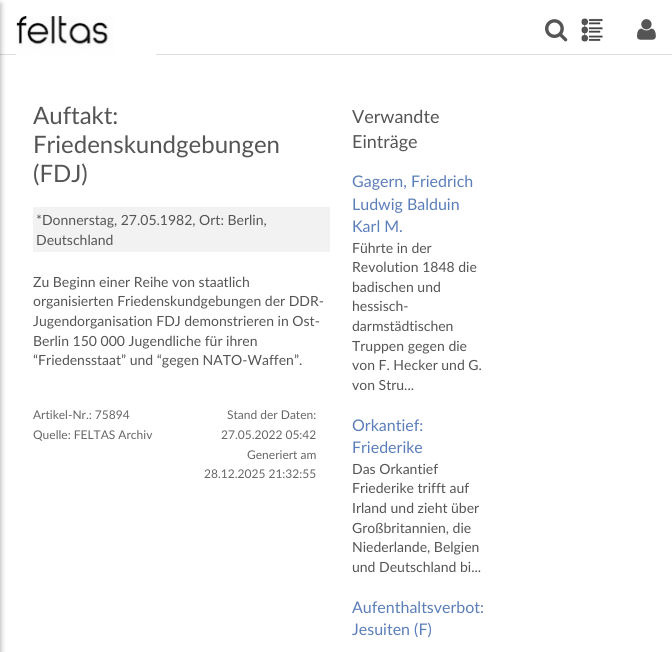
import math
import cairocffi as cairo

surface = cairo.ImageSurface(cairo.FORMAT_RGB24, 672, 652)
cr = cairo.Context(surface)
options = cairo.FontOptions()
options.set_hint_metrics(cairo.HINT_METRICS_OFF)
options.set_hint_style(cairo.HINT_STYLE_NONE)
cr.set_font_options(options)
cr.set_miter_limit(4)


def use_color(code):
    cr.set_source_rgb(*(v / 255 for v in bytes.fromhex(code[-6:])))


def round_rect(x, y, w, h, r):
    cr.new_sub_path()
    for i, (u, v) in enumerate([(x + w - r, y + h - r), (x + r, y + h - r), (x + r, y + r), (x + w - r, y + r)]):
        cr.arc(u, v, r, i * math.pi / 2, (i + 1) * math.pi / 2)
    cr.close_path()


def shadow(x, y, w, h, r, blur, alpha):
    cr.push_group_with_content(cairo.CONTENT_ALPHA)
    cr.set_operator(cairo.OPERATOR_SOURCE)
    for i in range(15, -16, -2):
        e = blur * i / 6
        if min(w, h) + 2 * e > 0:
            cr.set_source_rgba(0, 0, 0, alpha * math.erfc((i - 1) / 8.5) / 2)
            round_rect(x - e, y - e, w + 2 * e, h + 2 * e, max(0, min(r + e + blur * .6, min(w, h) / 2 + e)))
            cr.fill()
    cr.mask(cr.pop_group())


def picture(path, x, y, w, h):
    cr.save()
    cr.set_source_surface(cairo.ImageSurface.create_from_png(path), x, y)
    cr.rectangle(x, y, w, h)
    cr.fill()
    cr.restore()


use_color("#ffffff")
cr.paint()
use_color("#dddddd")
cr.rectangle(0, 54, 672, 1)
cr.fill()
use_color("#000000")
shadow(-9, 4, 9, 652, 0, 3, 0.4)
picture("img1.png", 16, 16, 140, 39)
picture("img2.png", 545, 19, 23, 23)
picture("img3.png", 581, 18, 22, 24)
picture("img4.png", 637, 19, 19, 21)
cr.select_font_face("Lato")
cr.set_font_size(24)
use_color("#555555")
cr.move_to(33, 124)
cr.show_text("Auftakt:")
cr.move_to(33, 153)
cr.show_text("Friedenskundgebungen")
cr.move_to(33, 182)
cr.show_text("(FDJ)")
use_color("#f2f2f2")
cr.rectangle(33, 207, 297, 45)
cr.fill()
cr.set_font_size(14)
use_color("#555555")
cr.move_to(36, 225)
cr.show_text("*Donnerstag, 27.05.1982, Ort: Berlin,")
cr.move_to(36, 245)
cr.show_text("Deutschland")
cr.move_to(33, 287)
cr.show_text("Zu Beginn einer Reihe von staatlich")
cr.move_to(33, 306)
cr.show_text("organisierten Friedenskundgebungen der DDR-")
cr.move_to(33, 326)
cr.show_text("Jugendorganisation FDJ demonstrieren in Ost-")
cr.move_to(33, 346)
cr.show_text("Berlin 150 000 Jugendliche für ihren")
cr.move_to(33, 365)
cr.show_text("“Friedensstaat” und “gegen NATO-Waffen”.")
cr.set_font_size(12)
use_color("#666666")
cr.move_to(33, 419)
cr.show_text("Artikel-Nr.: 75894")
cr.move_to(33, 439)
cr.show_text("Quelle: FELTAS Archiv")
cr.move_to(227, 419)
cr.show_text("Stand der Daten:")
cr.move_to(221, 439)
cr.show_text("27.05.2022 05:42")
cr.move_to(247, 459)
cr.show_text("Generiert am")
cr.move_to(204, 478)
cr.show_text("28.12.2025 21:32:55")
cr.set_font_size(18)
use_color("#555555")
cr.move_to(352, 123)
cr.show_text("Verwandte")
cr.move_to(352, 148)
cr.show_text("Einträge")
cr.set_font_size(16)
use_color("#5b7eb9")
cr.move_to(352, 187)
cr.show_text("Gagern, Friedrich")
cr.move_to(352, 210)
cr.show_text("Ludwig Balduin")
cr.move_to(352, 232)
cr.show_text("Karl M.")
cr.set_font_size(14)
use_color("#555555")
cr.move_to(352, 253)
cr.show_text("Führte in der")
cr.move_to(352, 272)
cr.show_text("Revolution 1848 die")
cr.move_to(352, 292)
cr.show_text("badischen und")
cr.move_to(352, 311)
cr.show_text("hessisch-")
cr.move_to(352, 331)
cr.show_text("darmstädtischen")
cr.move_to(352, 351)
cr.show_text("Truppen gegen die")
cr.move_to(352, 370)
cr.show_text("von F. Hecker und G.")
cr.move_to(352, 390)
cr.show_text("von Stru...")
cr.set_font_size(16)
use_color("#5b7eb9")
cr.move_to(352, 431)
cr.show_text("Orkantief:")
cr.move_to(352, 453)
cr.show_text("Friederike")
cr.set_font_size(14)
use_color("#555555")
cr.move_to(352, 474)
cr.show_text("Das Orkantief")
cr.move_to(352, 493)
cr.show_text("Friederike trifft auf")
cr.move_to(352, 513)
cr.show_text("Irland und zieht über")
cr.move_to(352, 533)
cr.show_text("Großbritannien, die")
cr.move_to(352, 552)
cr.show_text("Niederlande, Belgien")
cr.move_to(352, 572)
cr.show_text("und Deutschland bi...")
cr.set_font_size(16)
use_color("#5b7eb9")
cr.move_to(352, 613)
cr.show_text("Aufenthaltsverbot:")
cr.move_to(352, 635)
cr.show_text("Jesuiten (F)")
surface.write_to_png("result.png")
